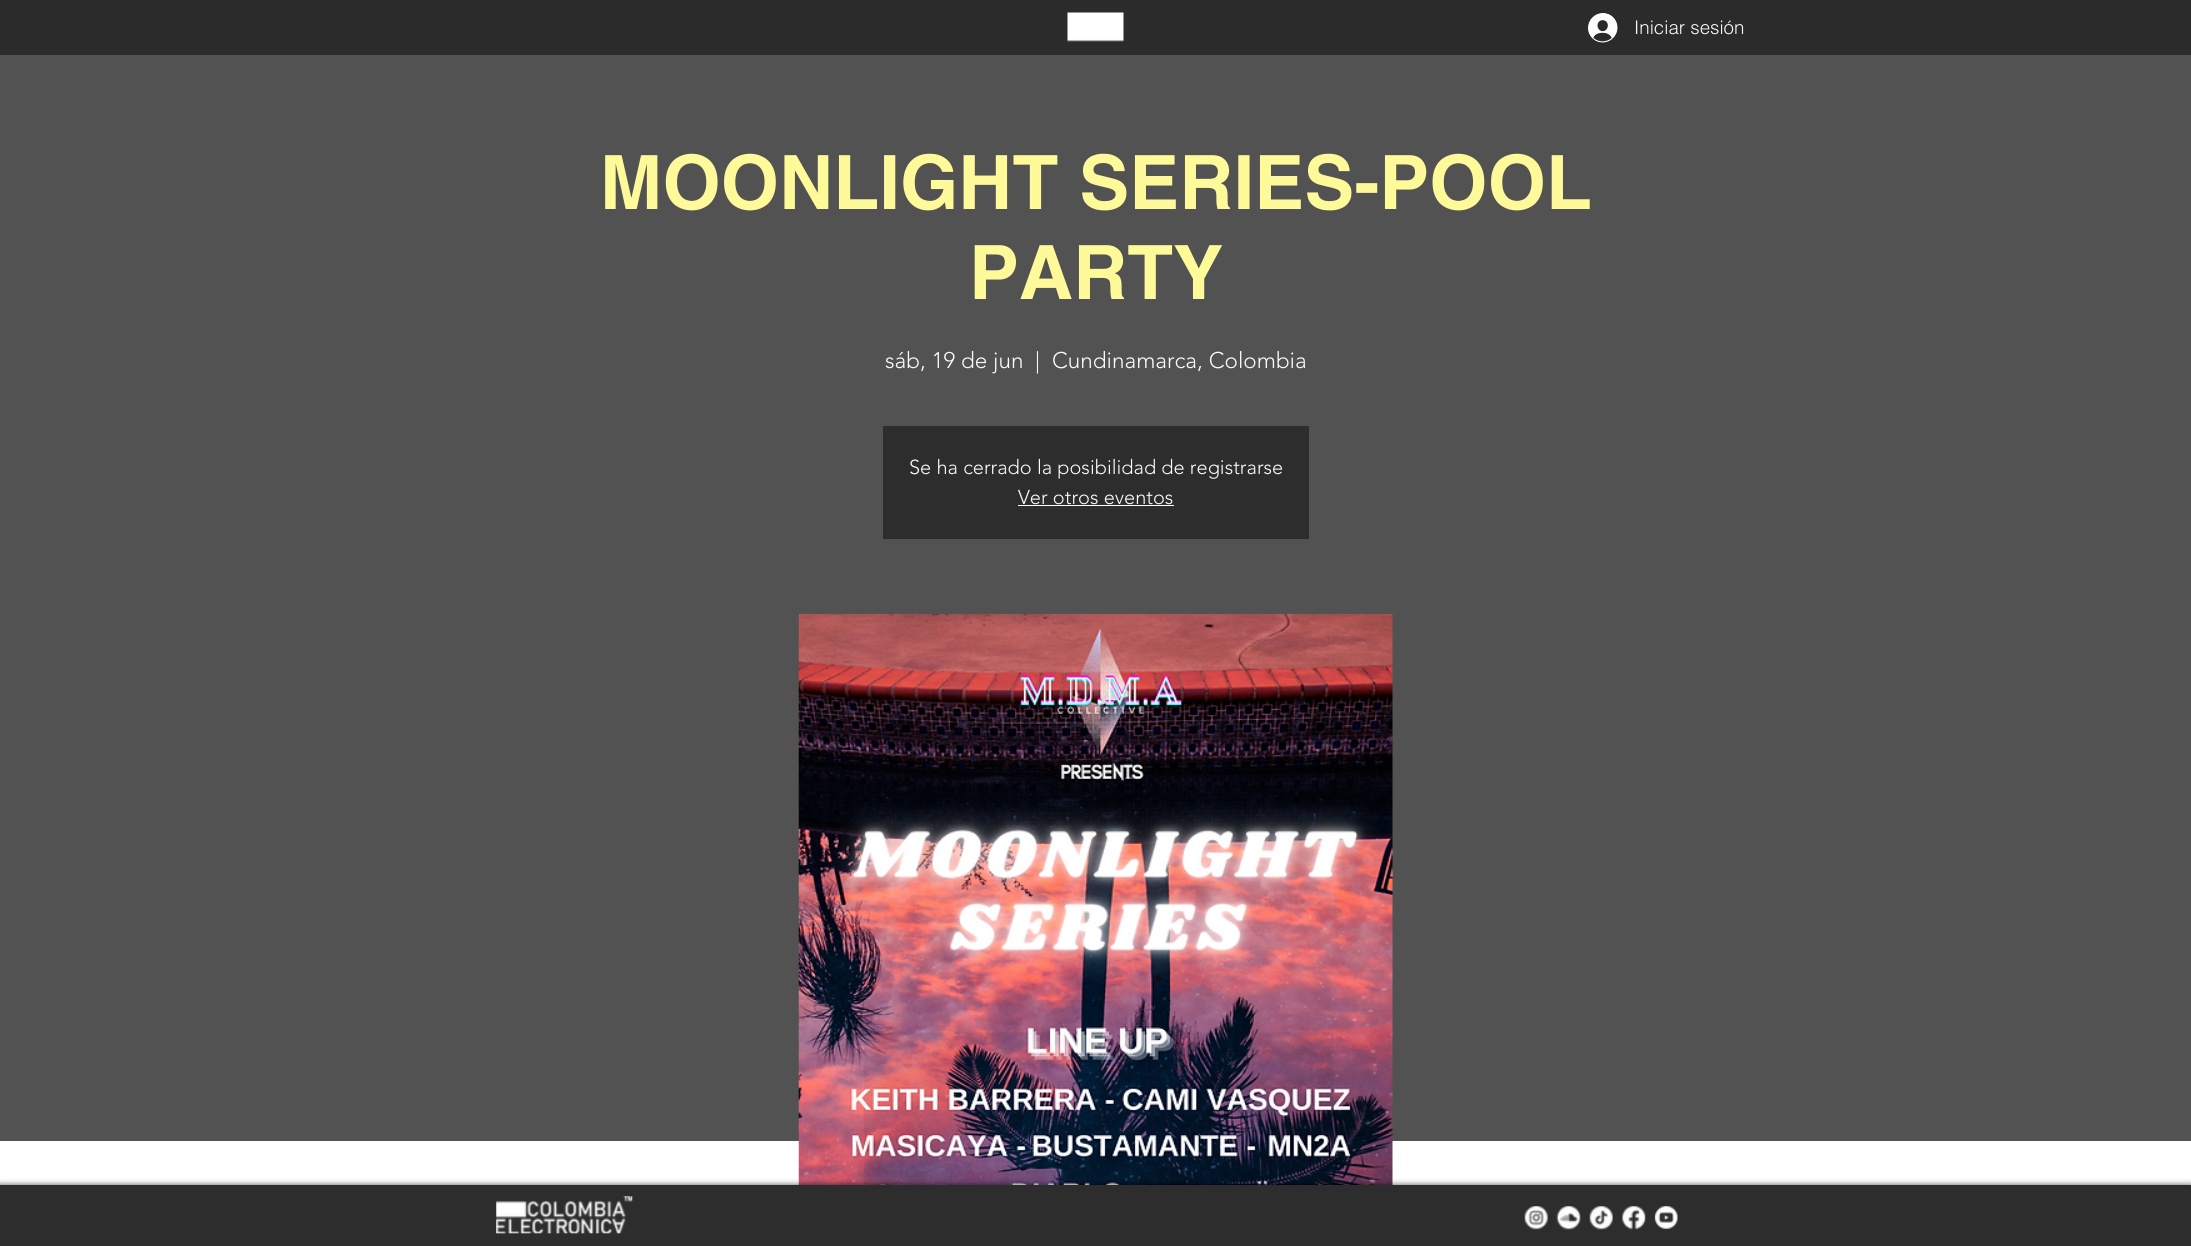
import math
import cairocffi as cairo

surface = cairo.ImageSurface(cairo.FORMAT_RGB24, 2191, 1246)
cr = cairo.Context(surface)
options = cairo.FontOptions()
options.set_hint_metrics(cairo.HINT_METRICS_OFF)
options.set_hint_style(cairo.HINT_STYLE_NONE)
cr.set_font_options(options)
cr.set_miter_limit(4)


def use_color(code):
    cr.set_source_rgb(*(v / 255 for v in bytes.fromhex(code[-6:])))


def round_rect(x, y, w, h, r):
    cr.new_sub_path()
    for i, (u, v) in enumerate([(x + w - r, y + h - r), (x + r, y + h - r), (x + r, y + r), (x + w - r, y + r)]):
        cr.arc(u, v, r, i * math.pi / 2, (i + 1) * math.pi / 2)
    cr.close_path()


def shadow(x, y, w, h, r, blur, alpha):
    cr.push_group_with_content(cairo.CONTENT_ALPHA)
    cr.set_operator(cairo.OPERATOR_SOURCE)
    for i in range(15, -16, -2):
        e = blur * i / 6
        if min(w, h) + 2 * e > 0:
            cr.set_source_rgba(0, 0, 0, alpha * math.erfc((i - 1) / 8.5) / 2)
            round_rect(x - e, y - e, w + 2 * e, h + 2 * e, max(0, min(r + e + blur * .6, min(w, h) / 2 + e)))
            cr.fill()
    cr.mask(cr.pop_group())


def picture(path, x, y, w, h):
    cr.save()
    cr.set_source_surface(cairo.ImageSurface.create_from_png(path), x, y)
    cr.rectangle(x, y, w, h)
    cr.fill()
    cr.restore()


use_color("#ffffff")
cr.paint()
use_color("#2c2b2b")
cr.rectangle(0, 0, 2191, 55)
cr.fill()
picture("img1.png", 1067, 12, 57, 30)
picture("img2.png", 1588, 13, 30, 30)
cr.select_font_face("helvetica Light")
cr.set_font_size(18.75)
use_color("#fafafa")
cr.move_to(1634, 34)
cr.show_text("Iniciar sesión")
use_color("#525252")
cr.rectangle(0, 55, 2191, 1086)
cr.fill()
cr.select_font_face("helvetica", cairo.FONT_SLANT_NORMAL, cairo.FONT_WEIGHT_BOLD)
cr.set_font_size(75)
use_color("#fef999")
cr.move_to(600, 209)
cr.show_text("MOONLIGHT SERIES-POOL")
cr.move_to(969, 299)
cr.show_text("PARTY")
cr.select_font_face("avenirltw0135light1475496 Light")
cr.set_font_size(22.5)
use_color("#fafafa")
cr.move_to(885, 368)
cr.show_text("sáb, 19 de jun")
cr.move_to(1035, 368)
cr.show_text("|")
cr.move_to(1052, 368)
cr.show_text("Cundinamarca, Colombia")
use_color("#2e2d2d")
cr.rectangle(883, 426, 426, 113)
cr.fill()
cr.set_font_size(20)
use_color("#fafafa")
cr.move_to(909, 474)
cr.show_text("Se ha cerrado la posibilidad de registrarse")
cr.move_to(1018, 504)
cr.show_text("Ver otros eventos")
use_color("#ffffff")
cr.rectangle(1018, 505, 156, 1)
cr.fill()
picture("img3.png", 798, 613, 595, 572)
use_color("#000000")
shadow(0, 1185, 2191, 61, 0, 3, 0.7)
use_color("#2e2d2d")
cr.rectangle(0, 1185, 2191, 61)
cr.fill()
picture("img4.png", 496, 1196, 137, 38)
picture("img5.png", 1524, 1206, 24, 24)
picture("img6.png", 1556, 1206, 25, 24)
picture("img7.png", 1589, 1206, 24, 24)
picture("img8.png", 1621, 1206, 25, 24)
picture("img9.png", 1654, 1206, 24, 23)
surface.write_to_png("result.png")
